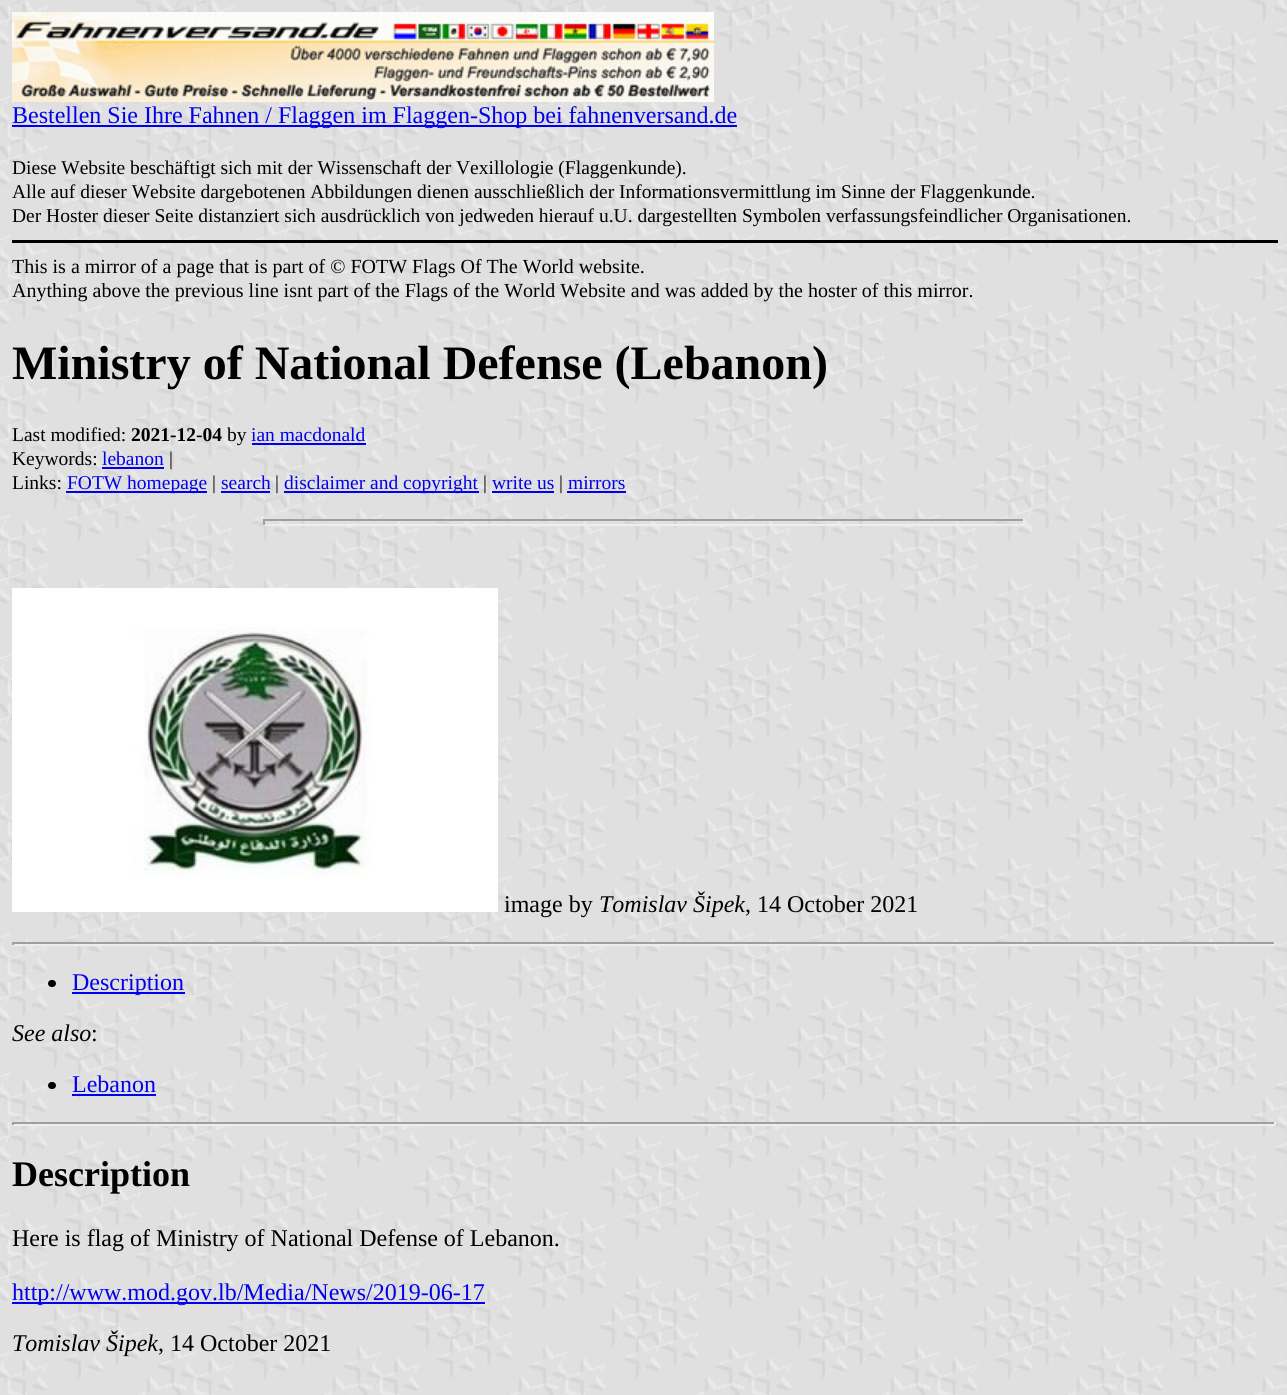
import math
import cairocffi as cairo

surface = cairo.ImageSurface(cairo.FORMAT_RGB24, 1287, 1395)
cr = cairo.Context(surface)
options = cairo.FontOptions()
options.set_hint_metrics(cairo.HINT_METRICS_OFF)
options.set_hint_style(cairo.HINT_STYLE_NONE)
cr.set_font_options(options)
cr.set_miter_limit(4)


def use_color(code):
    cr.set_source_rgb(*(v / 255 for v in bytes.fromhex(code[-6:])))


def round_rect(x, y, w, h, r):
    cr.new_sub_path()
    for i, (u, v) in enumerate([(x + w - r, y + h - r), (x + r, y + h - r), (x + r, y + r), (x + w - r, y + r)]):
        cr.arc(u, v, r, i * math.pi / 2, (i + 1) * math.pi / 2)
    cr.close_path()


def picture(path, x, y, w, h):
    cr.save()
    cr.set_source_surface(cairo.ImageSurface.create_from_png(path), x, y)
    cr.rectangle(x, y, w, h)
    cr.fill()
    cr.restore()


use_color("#ffffff")
cr.paint()
picture("img1.png", 0, 0, 1287, 1395)
picture("img2.png", 12, 12, 702, 90)
use_color("#0000ee")
cr.rectangle(12, 125, 725, 2)
cr.fill()
cr.select_font_face("Liberation Serif")
cr.set_font_size(24)
cr.move_to(12, 123)
cr.show_text("Bestellen Sie Ihre Fahnen / Flaggen im Flaggen-Shop bei fahnenversand.de")
cr.set_font_size(19.5)
use_color("#000000")
cr.move_to(12, 174)
cr.show_text("Diese Website beschäftigt sich mit der Wissenschaft der Vexillologie (Flaggenkunde).")
cr.move_to(12, 198)
cr.show_text("Alle auf dieser Website dargebotenen Abbildungen dienen ausschließlich der Informationsvermittlung im Sinne der Flaggenkunde.")
cr.move_to(12, 222)
cr.show_text("Der Hoster dieser Seite distanziert sich ausdrücklich von jedweden hierauf u.U. dargestellten Symbolen verfassungsfeindlicher Organisationen.")
cr.rectangle(12, 240, 1266, 3)
cr.fill()
cr.set_font_size(20)
cr.move_to(12, 273)
cr.show_text("This is a mirror of a page that is part of © FOTW Flags Of The World website.")
cr.move_to(12, 297)
cr.show_text("Anything above the previous line isnt part of the Flags of the World Website and was added by the hoster of this mirror.")
cr.select_font_face("Liberation Serif", cairo.FONT_SLANT_NORMAL, cairo.FONT_WEIGHT_BOLD)
cr.set_font_size(48)
cr.move_to(12, 379)
cr.show_text("Ministry of National Defense (Lebanon)")
cr.select_font_face("Liberation Serif")
cr.set_font_size(19.5)
cr.move_to(12, 441)
cr.show_text("Last modified:")
cr.select_font_face("Liberation Serif", cairo.FONT_SLANT_NORMAL, cairo.FONT_WEIGHT_BOLD)
cr.move_to(131, 441)
cr.show_text("2021-12-04")
cr.select_font_face("Liberation Serif")
cr.move_to(227, 441)
cr.show_text("by")
use_color("#0000ee")
cr.move_to(251, 441)
cr.show_text("ian macdonald")
cr.rectangle(252, 443, 114, 2)
cr.fill()
use_color("#000000")
cr.move_to(12, 465)
cr.show_text("Keywords:")
use_color("#0000ee")
cr.move_to(102, 465)
cr.show_text("lebanon")
cr.rectangle(102, 467, 62, 2)
cr.fill()
use_color("#000000")
cr.move_to(169, 465)
cr.show_text("|")
cr.move_to(12, 489)
cr.show_text("Links:")
use_color("#0000ee")
cr.rectangle(66, 491, 141, 2)
cr.fill()
cr.move_to(67, 489)
cr.show_text("FOTW homepage")
use_color("#000000")
cr.move_to(212, 489)
cr.show_text("|")
use_color("#0000ee")
cr.move_to(221, 489)
cr.show_text("search")
cr.rectangle(221, 491, 49, 2)
cr.fill()
use_color("#000000")
cr.move_to(275, 489)
cr.show_text("|")
use_color("#0000ee")
cr.rectangle(284, 491, 195, 2)
cr.fill()
cr.move_to(284, 489)
cr.show_text("disclaimer and copyright")
use_color("#000000")
cr.move_to(483, 489)
cr.show_text("|")
use_color("#0000ee")
cr.move_to(492, 489)
cr.show_text("write us")
cr.rectangle(492, 491, 62, 2)
cr.fill()
use_color("#000000")
cr.move_to(559, 489)
cr.show_text("|")
use_color("#0000ee")
cr.move_to(568, 489)
cr.show_text("mirrors")
cr.rectangle(567, 491, 59, 2)
cr.fill()
use_color("#9f9f9f")
cr.rectangle(263, 519, 762, 2)
cr.fill()
use_color("#eeeeee")
cr.rectangle(1023, 519, 2, 6)
cr.fill()
cr.rectangle(263, 524, 762, 2)
cr.fill()
use_color("#9f9f9f")
cr.rectangle(263, 519, 2, 6)
cr.fill()
picture("img3.png", 12, 588, 486, 324)
cr.set_font_size(24)
use_color("#000000")
cr.move_to(504, 912)
cr.show_text("image by")
cr.select_font_face("Liberation Serif", cairo.FONT_SLANT_ITALIC)
cr.move_to(599, 912)
cr.show_text("Tomislav Šipek")
cr.select_font_face("Liberation Serif")
cr.move_to(745, 912)
cr.show_text(", 14 October 2021")
use_color("#9f9f9f")
cr.rectangle(12, 942, 1263, 2)
cr.fill()
use_color("#eeeeee")
cr.rectangle(1274, 942, 2, 3)
cr.fill()
cr.rectangle(12, 944, 1263, 2)
cr.fill()
use_color("#9f9f9f")
cr.rectangle(12, 942, 2, 3)
cr.fill()
use_color("#000000")
round_rect(48, 980, 8, 7, 3.5)
cr.fill()
use_color("#0000ee")
cr.rectangle(72, 992, 113, 2)
cr.fill()
cr.move_to(72, 990)
cr.show_text("Description")
cr.select_font_face("Liberation Serif", cairo.FONT_SLANT_ITALIC)
use_color("#000000")
cr.move_to(12, 1041)
cr.show_text("See also")
cr.select_font_face("Liberation Serif")
cr.move_to(91, 1041)
cr.show_text(":")
round_rect(48, 1082, 8, 7, 3.5)
cr.fill()
use_color("#0000ee")
cr.move_to(72, 1092)
cr.show_text("Lebanon")
cr.rectangle(72, 1094, 84, 2)
cr.fill()
use_color("#9f9f9f")
cr.rectangle(12, 1122, 1263, 2)
cr.fill()
use_color("#eeeeee")
cr.rectangle(1274, 1122, 2, 3)
cr.fill()
cr.rectangle(12, 1124, 1263, 2)
cr.fill()
use_color("#9f9f9f")
cr.rectangle(12, 1122, 2, 3)
cr.fill()
cr.select_font_face("Liberation Serif", cairo.FONT_SLANT_NORMAL, cairo.FONT_WEIGHT_BOLD)
cr.set_font_size(36)
use_color("#000000")
cr.move_to(12, 1186)
cr.show_text("Description")
cr.select_font_face("Liberation Serif")
cr.set_font_size(24)
cr.move_to(12, 1246)
cr.show_text("Here is flag of Ministry of National Defense of Lebanon.")
use_color("#0000ee")
cr.rectangle(12, 1302, 473, 2)
cr.fill()
cr.move_to(12, 1300)
cr.show_text("http://www.mod.gov.lb/Media/News/2019-06-17")
cr.select_font_face("Liberation Serif", cairo.FONT_SLANT_ITALIC)
use_color("#000000")
cr.move_to(12, 1351)
cr.show_text("Tomislav Šipek")
cr.select_font_face("Liberation Serif")
cr.move_to(158, 1351)
cr.show_text(", 14 October 2021")
surface.write_to_png("result.png")
